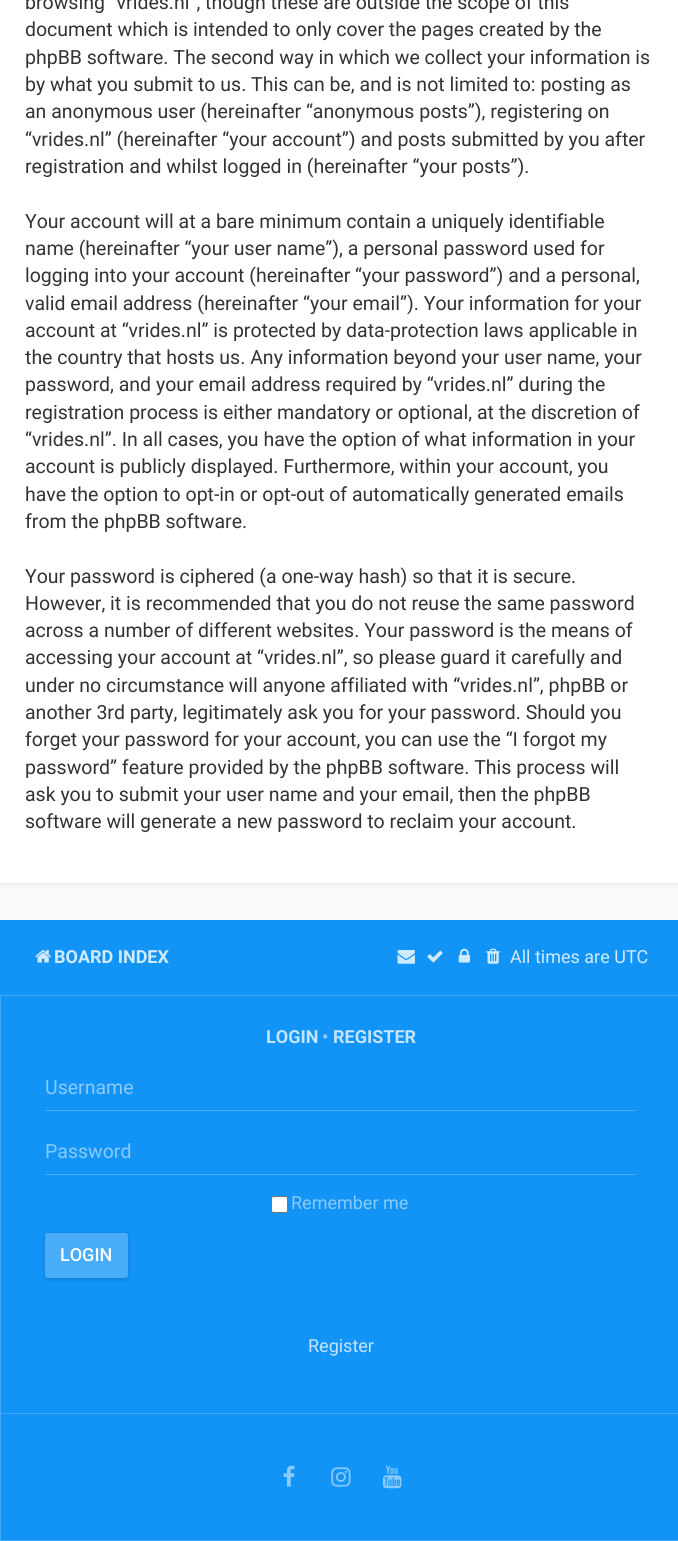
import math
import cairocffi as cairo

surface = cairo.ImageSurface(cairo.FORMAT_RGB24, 678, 1541)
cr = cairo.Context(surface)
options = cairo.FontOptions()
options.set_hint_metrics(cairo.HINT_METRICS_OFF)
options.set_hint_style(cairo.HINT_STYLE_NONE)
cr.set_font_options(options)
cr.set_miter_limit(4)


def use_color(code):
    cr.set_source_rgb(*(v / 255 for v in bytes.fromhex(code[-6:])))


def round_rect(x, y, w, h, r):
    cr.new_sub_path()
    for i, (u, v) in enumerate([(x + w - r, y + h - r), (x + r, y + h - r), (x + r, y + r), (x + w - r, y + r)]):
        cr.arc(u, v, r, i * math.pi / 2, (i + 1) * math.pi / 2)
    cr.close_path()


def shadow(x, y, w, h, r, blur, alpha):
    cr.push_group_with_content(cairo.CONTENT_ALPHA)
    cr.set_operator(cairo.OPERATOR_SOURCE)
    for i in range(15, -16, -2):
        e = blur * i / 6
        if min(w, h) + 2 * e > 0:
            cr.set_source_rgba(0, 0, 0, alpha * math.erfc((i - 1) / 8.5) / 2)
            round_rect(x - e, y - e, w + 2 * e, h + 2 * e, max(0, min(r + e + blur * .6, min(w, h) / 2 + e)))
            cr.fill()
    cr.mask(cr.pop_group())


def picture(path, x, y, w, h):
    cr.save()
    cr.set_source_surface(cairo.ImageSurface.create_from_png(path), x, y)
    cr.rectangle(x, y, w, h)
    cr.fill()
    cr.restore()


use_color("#f9f9f9")
cr.paint()
use_color("#000000")
shadow(0, -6, 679, 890, 0, 2, 0.1)
use_color("#ffffff")
cr.rectangle(0, 0, 678, 883)
cr.fill()
cr.select_font_face("Roboto")
cr.set_font_size(19.5)
use_color("#333333")
cr.move_to(25, 9)
cr.show_text("browsing “vrides.nl”, though these are outside the scope of this")
cr.move_to(25, 36)
cr.show_text("document which is intended to only cover the pages created by the")
cr.move_to(25, 64)
cr.show_text("phpBB software. The second way in which we collect your information is")
cr.move_to(25, 91)
cr.show_text("by what you submit to us. This can be, and is not limited to: posting as")
cr.move_to(25, 118)
cr.show_text("an anonymous user (hereinafter “anonymous posts”), registering on")
cr.move_to(25, 146)
cr.show_text("“vrides.nl” (hereinafter “your account”) and posts submitted by you after")
cr.move_to(25, 173)
cr.show_text("registration and whilst logged in (hereinafter “your posts”).")
cr.move_to(25, 228)
cr.show_text("Your account will at a bare minimum contain a uniquely identifiable")
cr.move_to(25, 255)
cr.show_text("name (hereinafter “your user name”), a personal password used for")
cr.move_to(25, 282)
cr.show_text("logging into your account (hereinafter “your password”) and a personal,")
cr.move_to(25, 310)
cr.show_text("valid email address (hereinafter “your email”). Your information for your")
cr.move_to(25, 337)
cr.show_text("account at “vrides.nl” is protected by data-protection laws applicable in")
cr.move_to(25, 364)
cr.show_text("the country that hosts us. Any information beyond your user name, your")
cr.move_to(25, 391)
cr.show_text("password, and your email address required by “vrides.nl” during the")
cr.move_to(25, 419)
cr.show_text("registration process is either mandatory or optional, at the discretion of")
cr.move_to(25, 446)
cr.show_text("“vrides.nl”. In all cases, you have the option of what information in your")
cr.move_to(25, 473)
cr.show_text("account is publicly displayed. Furthermore, within your account, you")
cr.move_to(25, 501)
cr.show_text("have the option to opt-in or opt-out of automatically generated emails")
cr.move_to(25, 528)
cr.show_text("from the phpBB software.")
cr.move_to(25, 583)
cr.show_text("Your password is ciphered (a one-way hash) so that it is secure.")
cr.move_to(25, 610)
cr.show_text("However, it is recommended that you do not reuse the same password")
cr.move_to(25, 637)
cr.show_text("across a number of different websites. Your password is the means of")
cr.move_to(25, 664)
cr.show_text("accessing your account at “vrides.nl”, so please guard it carefully and")
cr.move_to(25, 692)
cr.show_text("under no circumstance will anyone affiliated with “vrides.nl”, phpBB or")
cr.move_to(25, 719)
cr.show_text("another 3rd party, legitimately ask you for your password. Should you")
cr.move_to(25, 746)
cr.show_text("forget your password for your account, you can use the “I forgot my")
cr.move_to(25, 774)
cr.show_text("password” feature provided by the phpBB software. This process will")
cr.move_to(25, 801)
cr.show_text("ask you to submit your user name and your email, then the phpBB")
cr.move_to(25, 828)
cr.show_text("software will generate a new password to reclaim your account.")
use_color("#1294f6")
cr.rectangle(0, 920, 678, 621)
cr.fill()
picture("img1.png", 35, 950, 16, 13)
cr.select_font_face("Roboto", cairo.FONT_SLANT_NORMAL, cairo.FONT_WEIGHT_BOLD)
cr.set_font_size(18)
use_color("#d0eafd")
cr.move_to(54, 963)
cr.show_text("BOARD INDEX")
picture("img2.png", 397, 950, 18, 14)
picture("img3.png", 427, 950, 16, 13)
picture("img4.png", 458, 948, 12, 15)
picture("img5.png", 486, 948, 14, 16)
cr.select_font_face("Roboto")
cr.move_to(510, 963)
cr.show_text("All times are UTC")
use_color("#41a9f8")
cr.new_path()
cr.move_to(0, 995)
cr.line_to(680, 995)
cr.line_to(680, 996)
cr.line_to(1, 996)
cr.close_path()
cr.fill()
cr.set_source_rgba(1, 1, 1, 0.2)
cr.new_path()
cr.move_to(0, 1541)
cr.line_to(0, 995)
cr.line_to(1, 996)
cr.line_to(1, 1541)
cr.close_path()
cr.fill()
use_color("#41a9f8")
cr.rectangle(1, 1413, 677, 1)
cr.fill()
cr.select_font_face("Roboto", cairo.FONT_SLANT_NORMAL, cairo.FONT_WEIGHT_BOLD)
use_color("#c4e4fd")
cr.move_to(266, 1043)
cr.show_text("LOGIN")
use_color("#89cafb")
cr.move_to(322, 1043)
cr.show_text("•")
use_color("#c4e4fd")
cr.move_to(333, 1043)
cr.show_text("REGISTER")
use_color("#49adf8")
cr.rectangle(45, 1110, 591, 1)
cr.fill()
cr.select_font_face("Roboto")
cr.set_font_size(19.5)
use_color("#89cafb")
cr.move_to(45, 1094)
cr.show_text("Username")
use_color("#49adf8")
cr.rectangle(45, 1174, 591, 1)
cr.fill()
use_color("#89cafb")
cr.move_to(45, 1158)
cr.show_text("Password")
use_color("#ffffff")
round_rect(271.5, 1196.5, 16, 16, 2)
cr.fill_preserve()
use_color("#767676")
cr.set_line_width(1)
cr.stroke()
cr.set_font_size(18)
use_color("#89cafb")
cr.move_to(291, 1209)
cr.show_text("Remember me")
cr.save()
cr.set_fill_rule(cairo.FILL_RULE_EVEN_ODD)
cr.new_path()
cr.move_to(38, 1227)
cr.line_to(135, 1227)
cr.line_to(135, 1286)
cr.line_to(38, 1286)
cr.close_path()
cr.move_to(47.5, 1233)
cr.line_to(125.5, 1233)
cr.curve_to(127, 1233, 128, 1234, 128, 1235.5)
cr.line_to(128, 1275.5)
cr.curve_to(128, 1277, 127, 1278, 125.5, 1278)
cr.line_to(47.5, 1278)
cr.curve_to(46, 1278, 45, 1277, 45, 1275.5)
cr.line_to(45, 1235.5)
cr.curve_to(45, 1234, 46, 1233, 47.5, 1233)
cr.close_path()
cr.clip()
use_color("#000000")
shadow(45, 1234, 83, 45, 2.5, 2, 0.2)
cr.restore()
cr.set_source_rgba(1, 1, 1, 0.23)
round_rect(45, 1233, 83, 45, 2.5)
cr.fill()
cr.select_font_face("Roboto Medium")
use_color("#ffffff")
cr.move_to(60, 1261)
cr.show_text("LOGIN")
cr.select_font_face("Roboto")
use_color("#c4e4fd")
cr.move_to(308, 1352)
cr.show_text("Register")
use_color("#41a9f8")
cr.rectangle(1, 1540, 677, 1)
cr.fill()
picture("img6.png", 283, 1465, 12, 22)
picture("img7.png", 331, 1467, 20, 20)
picture("img8.png", 382, 1465, 20, 24)
surface.write_to_png("result.png")
